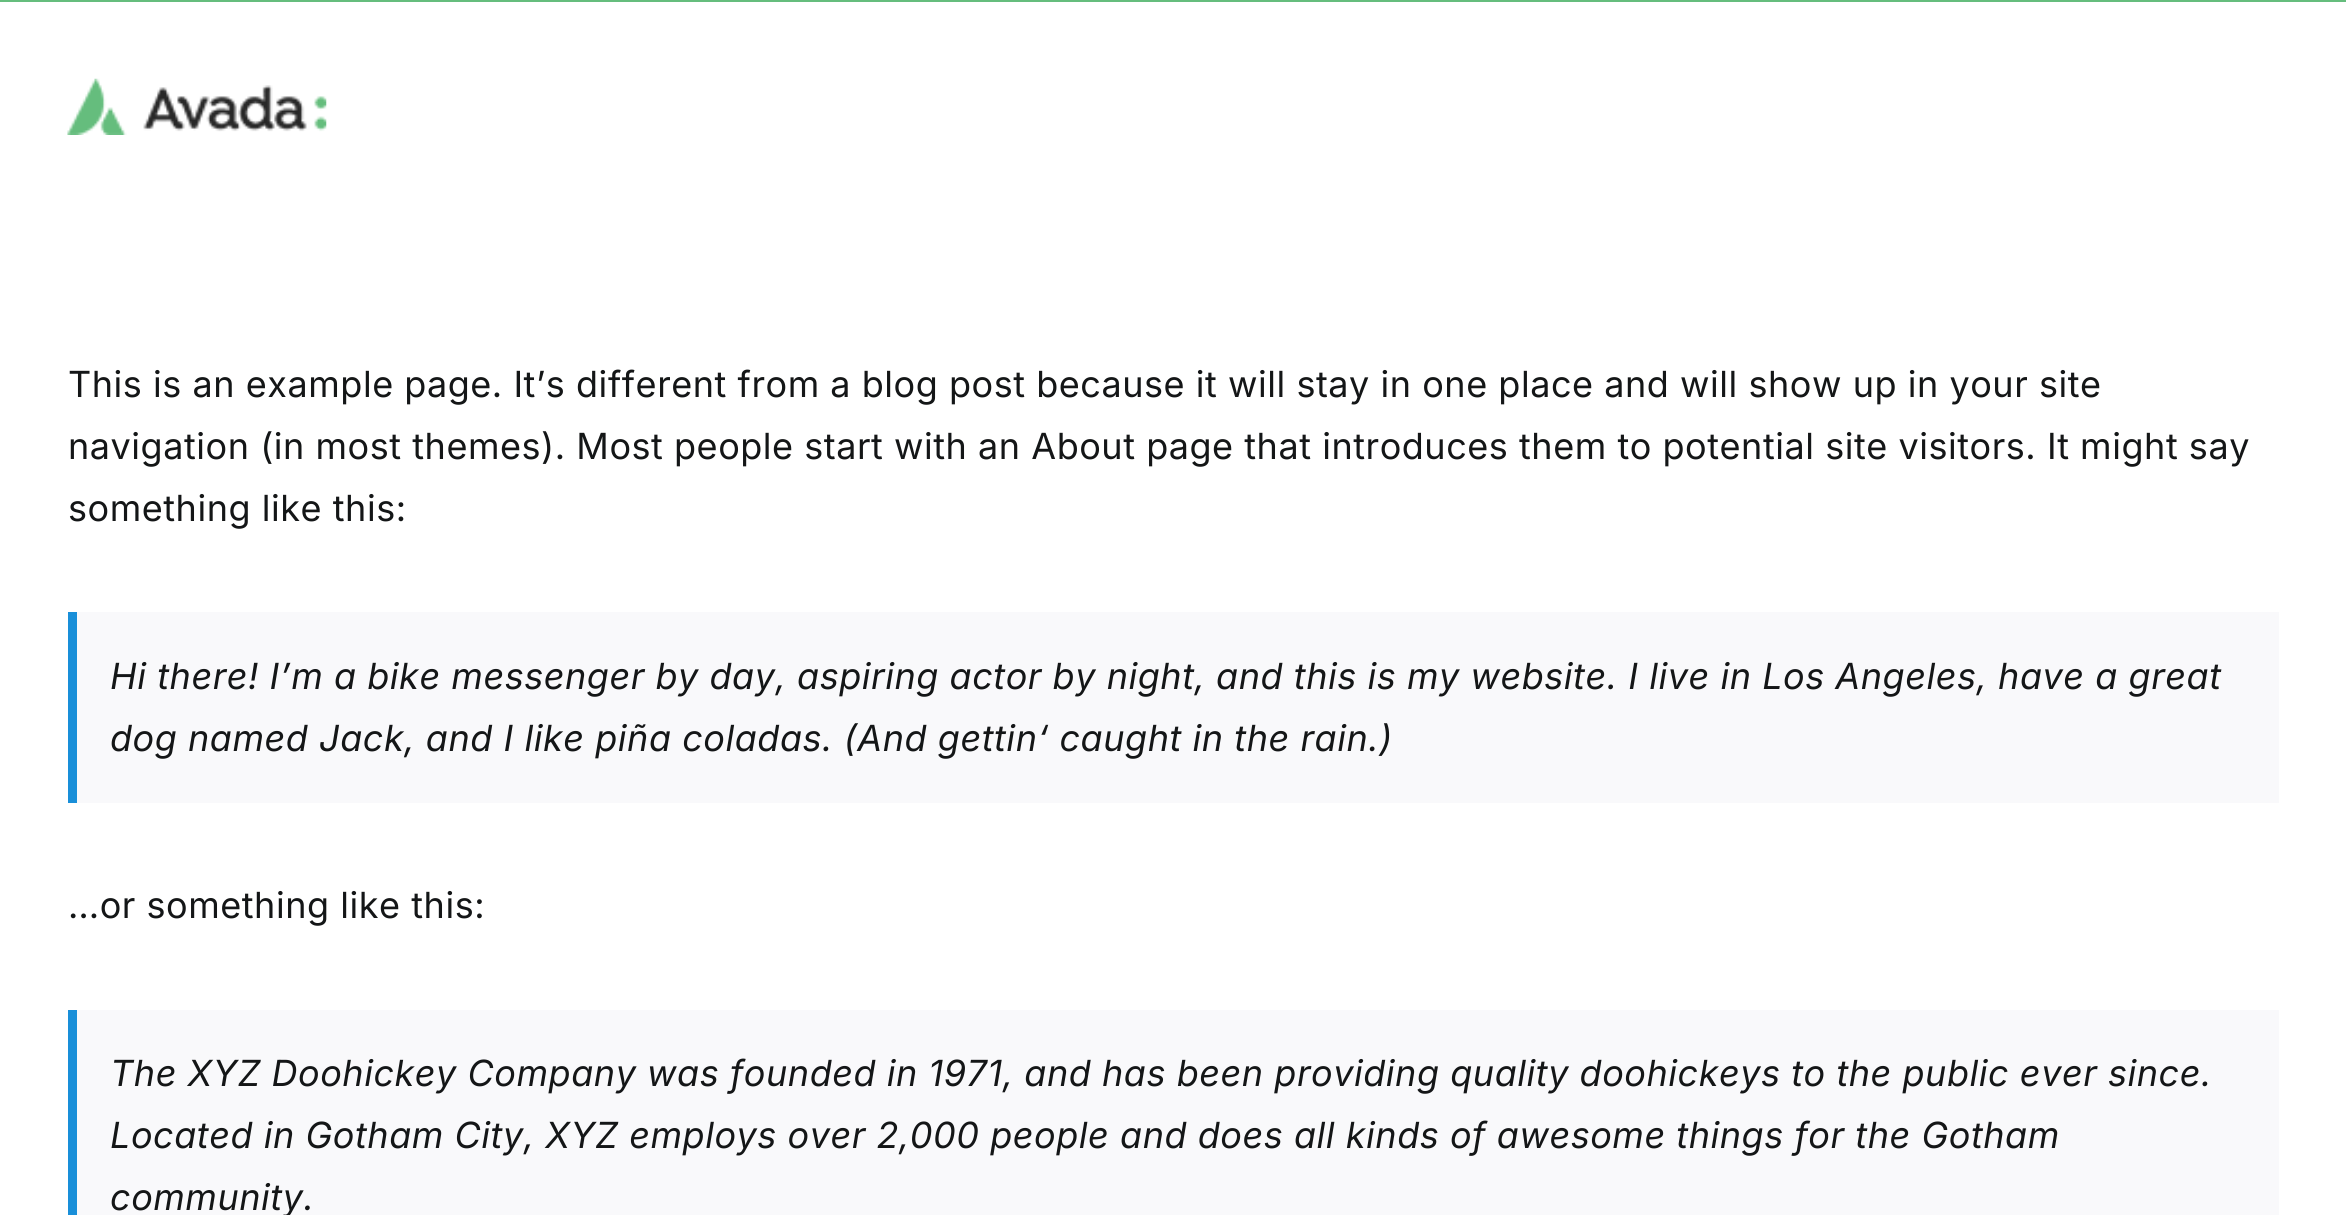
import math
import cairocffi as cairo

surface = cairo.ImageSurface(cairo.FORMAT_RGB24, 2346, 1215)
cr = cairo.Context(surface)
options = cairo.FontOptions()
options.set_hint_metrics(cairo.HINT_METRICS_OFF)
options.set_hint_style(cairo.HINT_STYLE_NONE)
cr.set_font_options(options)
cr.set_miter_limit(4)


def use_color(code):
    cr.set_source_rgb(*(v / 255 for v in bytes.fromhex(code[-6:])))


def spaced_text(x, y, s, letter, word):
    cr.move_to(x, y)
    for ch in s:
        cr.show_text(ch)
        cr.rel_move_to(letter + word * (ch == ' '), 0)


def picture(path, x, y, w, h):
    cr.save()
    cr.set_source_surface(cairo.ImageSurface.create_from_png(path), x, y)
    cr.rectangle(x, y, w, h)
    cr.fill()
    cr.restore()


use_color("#ffffff")
cr.paint()
use_color("#65bd7d")
cr.rectangle(0, 0, 2346, 2)
cr.fill()
picture("img1.png", 67, 78, 260, 57)
cr.select_font_face("Inter")
cr.set_font_size(36)
use_color("#141617")
spaced_text(68, 397, "This is an example page. It’s different from a blog post because it will stay in one place and will show up in your site", 0.54, 0)
spaced_text(68, 459, "navigation (in most themes). Most people start with an About page that introduces them to potential site visitors. It might say", 0.54, 0)
spaced_text(68, 521, "something like this:", 0.54, 0)
use_color("#f9f9fb")
cr.rectangle(77, 612, 2202, 191)
cr.fill()
use_color("#198fd9")
cr.rectangle(68, 612, 9, 191)
cr.fill()
cr.select_font_face("Inter", cairo.FONT_SLANT_ITALIC)
use_color("#141617")
spaced_text(110, 689, "Hi there! I’m a bike messenger by day, aspiring actor by night, and this is my website. I live in Los Angeles, have a great", 0.54, 0)
spaced_text(110, 751, "dog named Jack, and I like piña coladas. (And gettin‘ caught in the rain.)", 0.54, 0)
cr.select_font_face("Inter")
spaced_text(68, 918, "…or something like this:", 0.54, 0)
use_color("#f9f9fb")
cr.rectangle(77, 1010, 2202, 205)
cr.fill()
use_color("#198fd9")
cr.rectangle(68, 1010, 9, 205)
cr.fill()
cr.select_font_face("Inter", cairo.FONT_SLANT_ITALIC)
use_color("#141617")
spaced_text(110, 1086, "The XYZ Doohickey Company was founded in 1971, and has been providing quality doohickeys to the public ever since.", 0.54, 0)
spaced_text(110, 1148, "Located in Gotham City, XYZ employs over 2,000 people and does all kinds of awesome things for the Gotham", 0.54, 0)
spaced_text(110, 1210, "community.", 0.54, 0)
surface.write_to_png("result.png")
